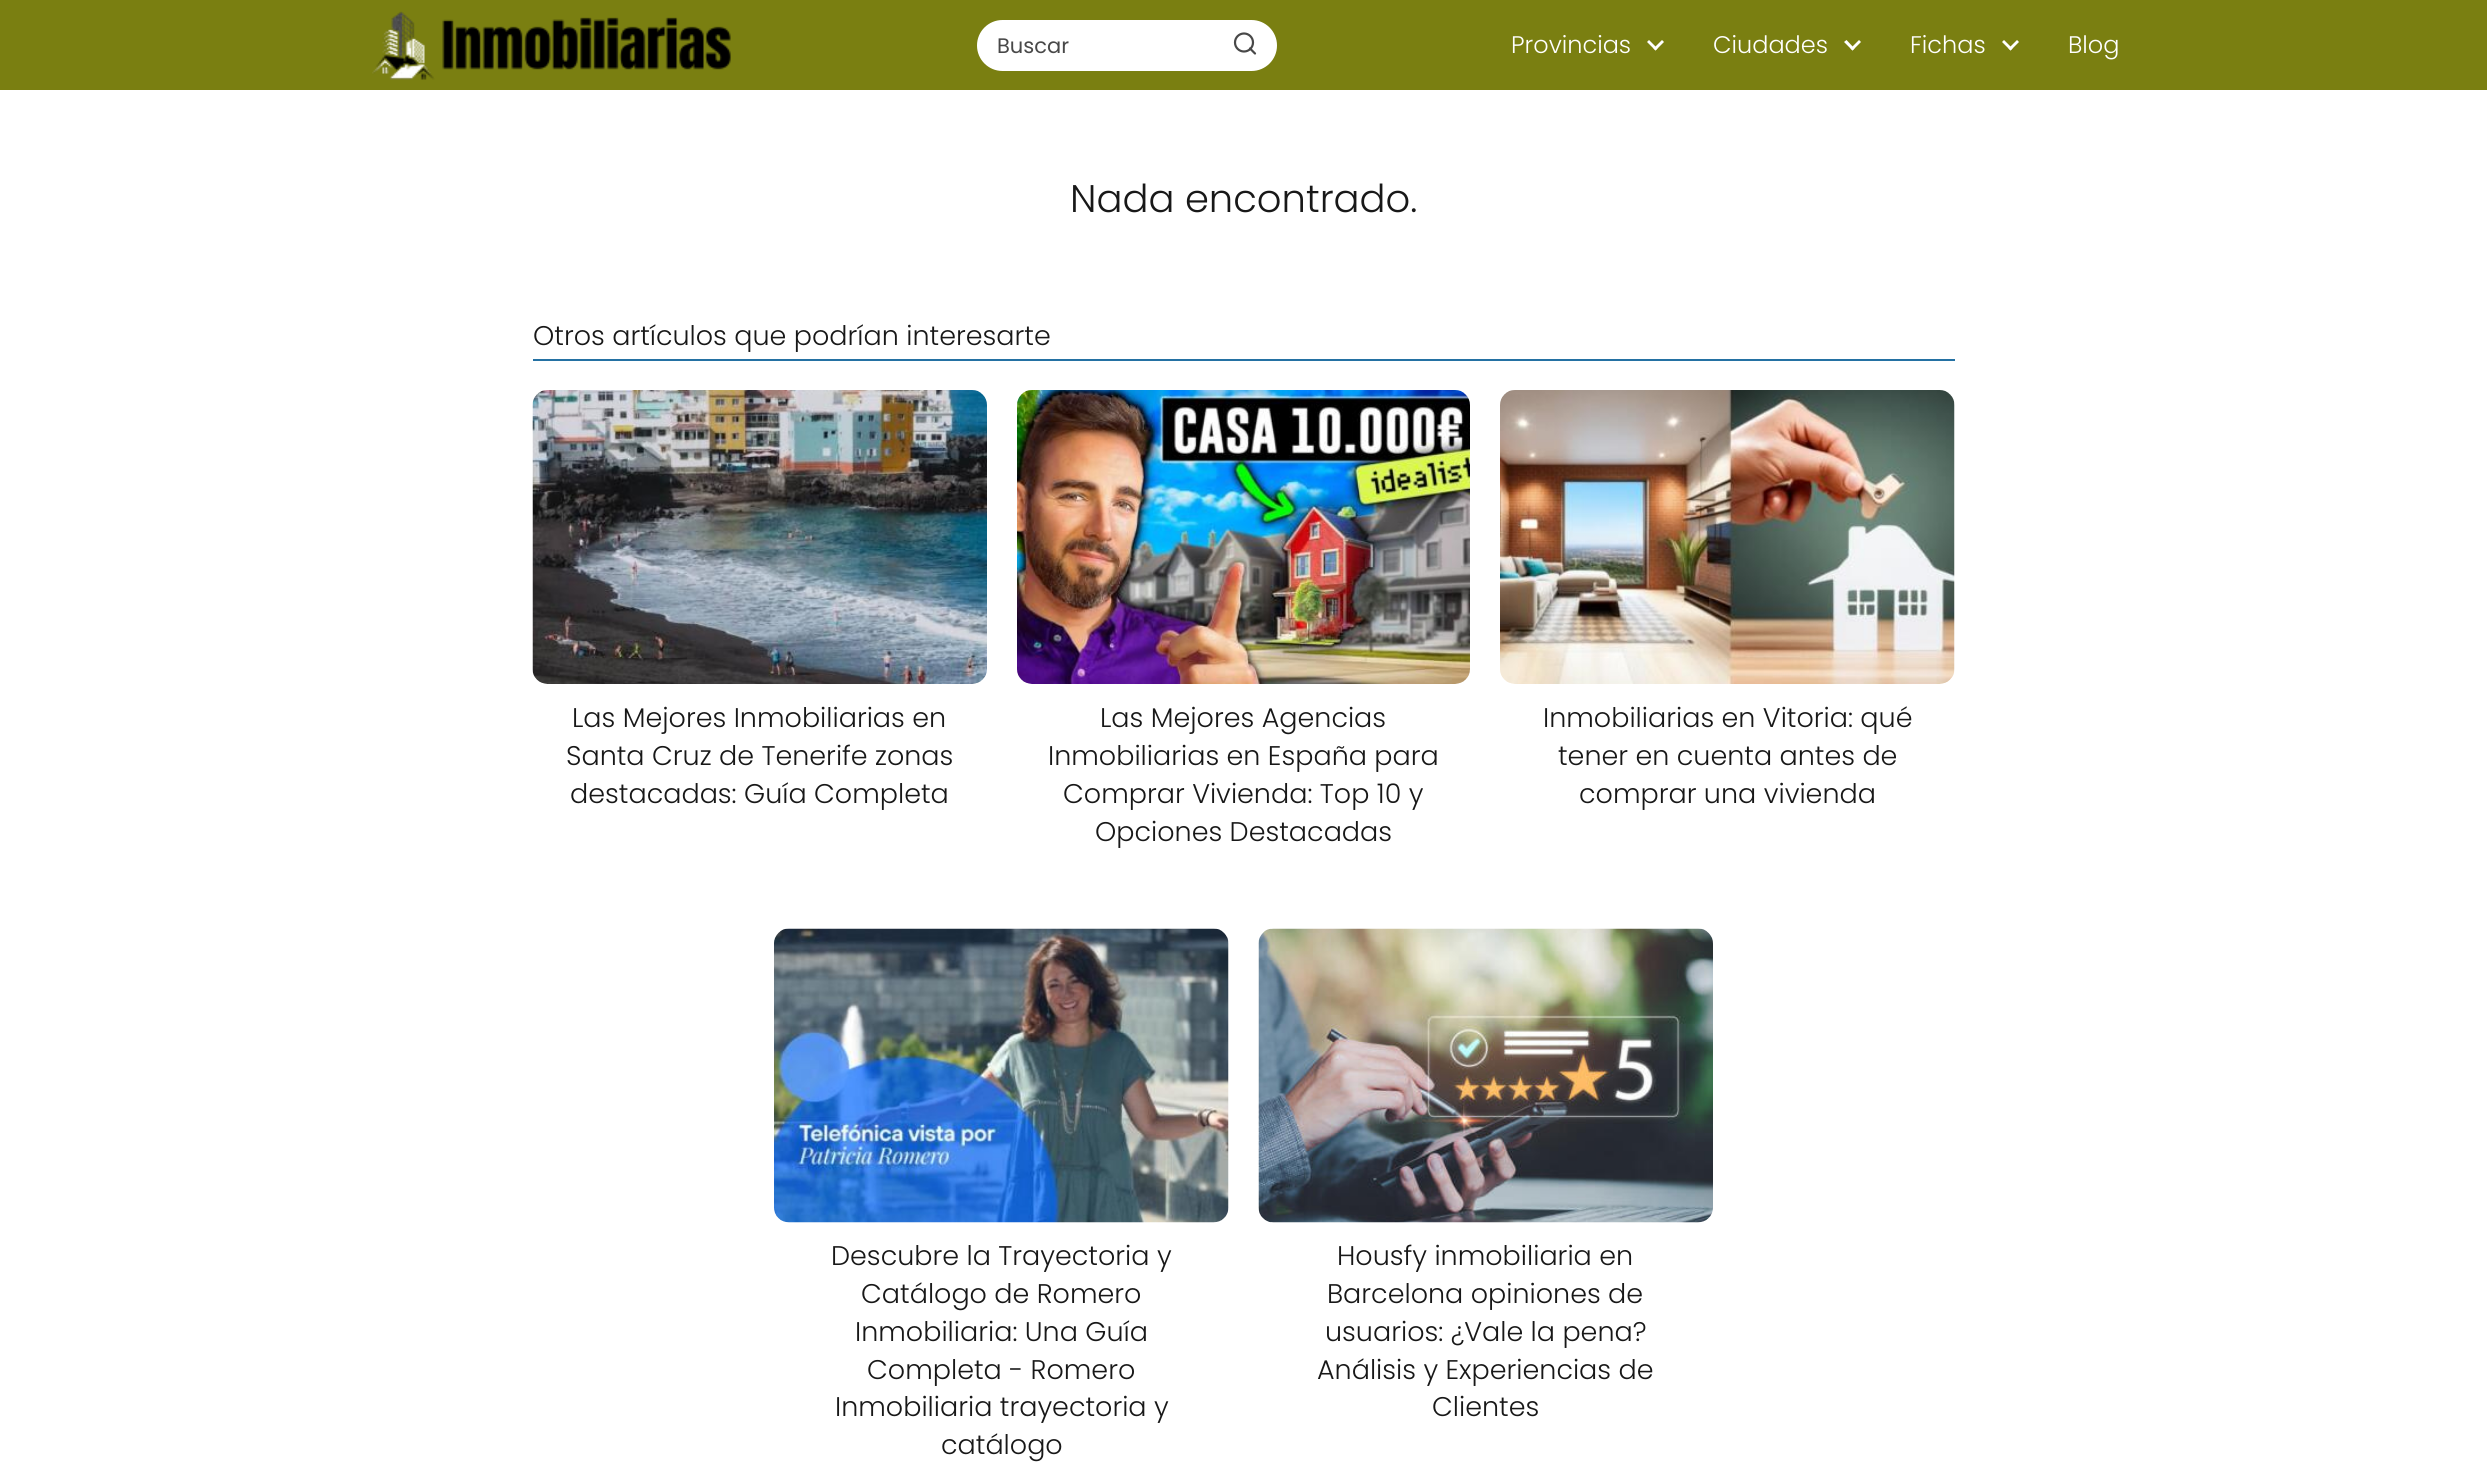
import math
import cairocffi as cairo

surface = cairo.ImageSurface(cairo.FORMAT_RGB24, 2487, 1482)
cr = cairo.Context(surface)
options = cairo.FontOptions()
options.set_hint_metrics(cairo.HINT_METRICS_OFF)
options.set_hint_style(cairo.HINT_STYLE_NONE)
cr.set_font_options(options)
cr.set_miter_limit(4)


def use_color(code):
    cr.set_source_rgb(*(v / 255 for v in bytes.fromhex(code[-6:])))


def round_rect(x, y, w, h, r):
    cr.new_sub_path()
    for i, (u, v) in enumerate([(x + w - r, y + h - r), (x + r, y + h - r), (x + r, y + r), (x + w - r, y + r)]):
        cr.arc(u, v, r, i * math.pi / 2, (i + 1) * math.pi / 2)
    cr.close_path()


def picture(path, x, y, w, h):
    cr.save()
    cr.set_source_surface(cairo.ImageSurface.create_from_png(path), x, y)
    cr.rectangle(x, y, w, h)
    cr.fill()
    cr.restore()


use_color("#ffffff")
cr.paint()
use_color("#7a7f11")
cr.rectangle(0, 0, 2487, 90)
cr.fill()
picture("img1.png", 372, 11, 359, 69)
use_color("#ffffff")
round_rect(978, 21, 298, 49, 24.5)
cr.fill_preserve()
cr.stroke()
cr.select_font_face("Poppins")
cr.set_font_size(21)
use_color("#484848")
cr.move_to(997, 53)
cr.show_text("Buscar")
cr.new_path()
cr.arc(1244, 42.5, 9, 0, 2 * math.pi)
cr.set_line_width(2.2)
cr.stroke()
cr.new_path()
cr.move_to(1255, 53.5)
cr.line_to(1250, 48.5)
cr.set_line_cap(cairo.LINE_CAP_ROUND)
cr.set_line_join(cairo.LINE_JOIN_ROUND)
cr.stroke()
cr.select_font_face("Poppins Light")
cr.set_font_size(24)
use_color("#ffffff")
cr.move_to(1511, 53)
cr.show_text("Provincias")
cr.new_path()
cr.move_to(1662, 40)
cr.line_to(1664, 42)
cr.line_to(1655.5, 50.5)
cr.line_to(1653.5, 48.5)
cr.close_path()
cr.fill()
cr.new_path()
cr.move_to(1649, 40)
cr.line_to(1657.5, 48.5)
cr.line_to(1655.5, 50.5)
cr.line_to(1647, 42)
cr.close_path()
cr.fill()
cr.move_to(1713, 53)
cr.show_text("Ciudades")
cr.new_path()
cr.move_to(1859, 40)
cr.line_to(1861, 42)
cr.line_to(1852.5, 50.5)
cr.line_to(1850.5, 48.5)
cr.close_path()
cr.fill()
cr.new_path()
cr.move_to(1846.5, 40)
cr.line_to(1854.5, 48.5)
cr.line_to(1852.5, 50.5)
cr.line_to(1844, 42)
cr.close_path()
cr.fill()
cr.move_to(1910, 53)
cr.show_text("Fichas")
cr.new_path()
cr.move_to(2017, 40)
cr.line_to(2019, 42)
cr.line_to(2010.5, 50.5)
cr.line_to(2008.5, 48.5)
cr.close_path()
cr.fill()
cr.new_path()
cr.move_to(2004, 40)
cr.line_to(2012.5, 48.5)
cr.line_to(2010.5, 50.5)
cr.line_to(2002, 42)
cr.close_path()
cr.fill()
cr.move_to(2068, 53)
cr.show_text("Blog")
cr.set_font_size(38.5)
use_color("#181818")
cr.move_to(1070, 212)
cr.show_text("Nada encontrado.")
use_color("#2471a3")
cr.rectangle(533, 359, 1422, 2)
cr.fill()
cr.set_font_size(27)
use_color("#181818")
cr.move_to(533, 345)
cr.show_text("Otros artículos que podrían interesarte")
picture("img2.png", 532, 390, 455, 294)
cr.move_to(572, 727)
cr.show_text("Las Mejores Inmobiliarias en")
cr.move_to(566, 765)
cr.show_text("Santa Cruz de Tenerife zonas")
cr.move_to(570, 803)
cr.show_text("destacadas: Guía Completa")
picture("img3.png", 1017, 390, 453, 294)
cr.move_to(1100, 727)
cr.show_text("Las Mejores Agencias")
cr.move_to(1048, 765)
cr.show_text("Inmobiliarias en España para")
cr.move_to(1063, 803)
cr.show_text("Comprar Vivienda: Top 10 y")
cr.move_to(1095, 841)
cr.show_text("Opciones Destacadas")
picture("img4.png", 1500, 390, 455, 294)
cr.move_to(1543, 727)
cr.show_text("Inmobiliarias en Vitoria: qué")
cr.move_to(1558, 765)
cr.show_text("tener en cuenta antes de")
cr.move_to(1579, 803)
cr.show_text("comprar una vivienda")
picture("img5.png", 774, 928, 455, 295)
cr.move_to(831, 1265)
cr.show_text("Descubre la Trayectoria y")
cr.move_to(861, 1303)
cr.show_text("Catálogo de Romero")
cr.move_to(855, 1341)
cr.show_text("Inmobiliaria: Una Guía")
cr.move_to(867, 1379)
cr.show_text("Completa - Romero")
cr.move_to(835, 1416)
cr.show_text("Inmobiliaria trayectoria y")
cr.move_to(941, 1454)
cr.show_text("catálogo")
picture("img6.png", 1258, 928, 455, 295)
cr.move_to(1337, 1265)
cr.show_text("Housfy inmobiliaria en")
cr.move_to(1327, 1303)
cr.show_text("Barcelona opiniones de")
cr.move_to(1325, 1341)
cr.show_text("usuarios: ¿Vale la pena?")
cr.move_to(1317, 1379)
cr.show_text("Análisis y Experiencias de")
cr.move_to(1432, 1416)
cr.show_text("Clientes")
surface.write_to_png("result.png")
